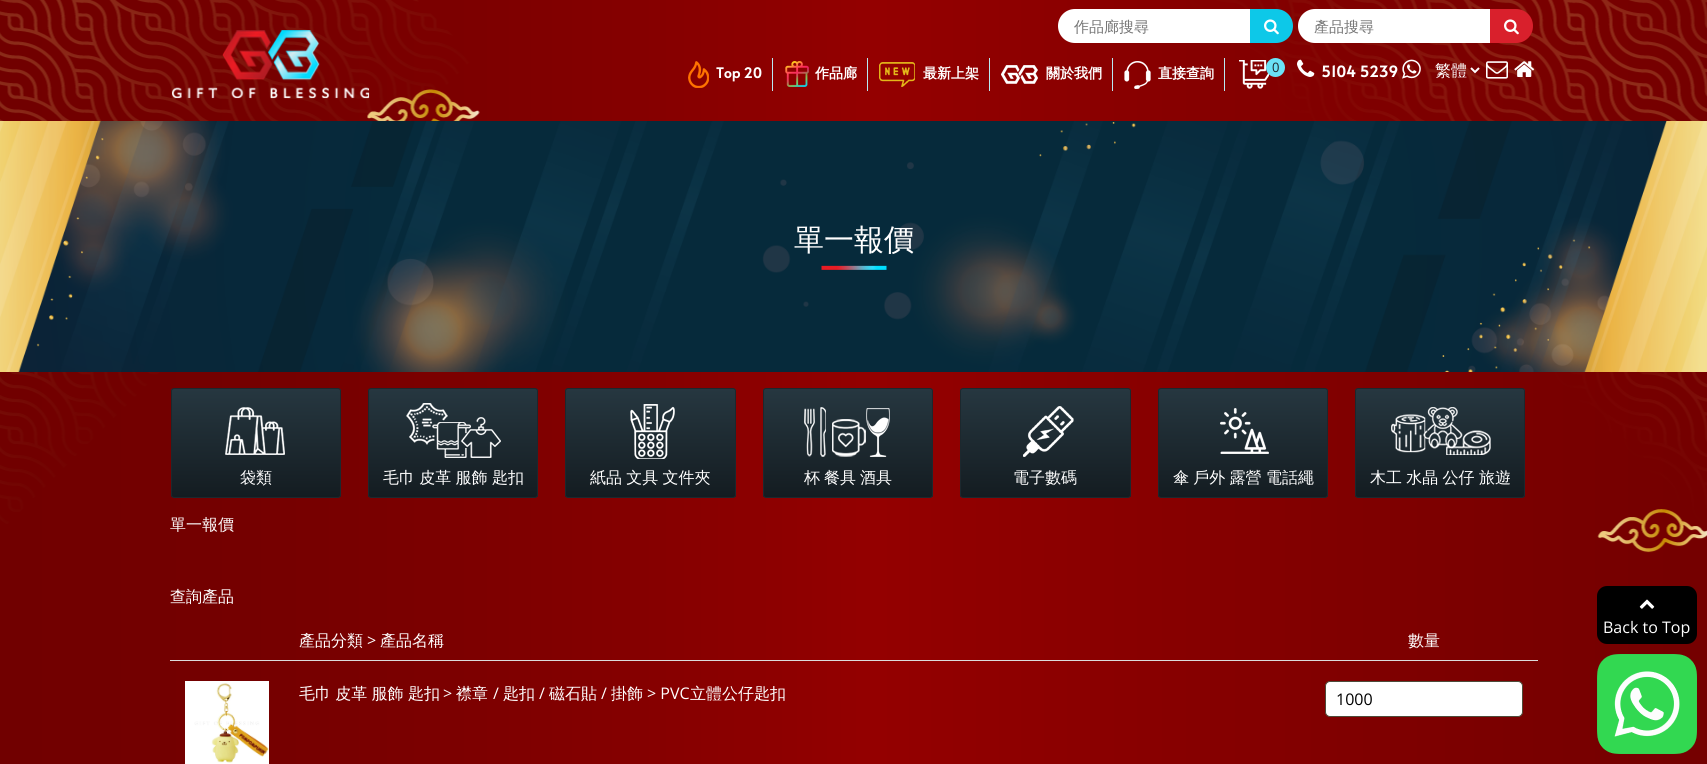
import math
import cairocffi as cairo

surface = cairo.ImageSurface(cairo.FORMAT_RGB24, 1707, 764)
cr = cairo.Context(surface)
options = cairo.FontOptions()
options.set_hint_metrics(cairo.HINT_METRICS_OFF)
options.set_hint_style(cairo.HINT_STYLE_NONE)
cr.set_font_options(options)
cr.set_miter_limit(4)


def use_color(code):
    cr.set_source_rgb(*(v / 255 for v in bytes.fromhex(code[-6:])))


def spaced_text(x, y, s, letter, word):
    cr.move_to(x, y)
    for ch in s:
        cr.show_text(ch)
        cr.rel_move_to(letter + word * (ch == ' '), 0)


def round_rect(x, y, w, h, r):
    cr.new_sub_path()
    for i, (u, v) in enumerate([(x + w - r, y + h - r), (x + r, y + h - r), (x + r, y + r), (x + w - r, y + r)]):
        cr.arc(u, v, r, i * math.pi / 2, (i + 1) * math.pi / 2)
    cr.close_path()


def picture(path, x, y, w, h):
    cr.save()
    cr.set_source_surface(cairo.ImageSurface.create_from_png(path), x, y)
    cr.rectangle(x, y, w, h)
    cr.fill()
    cr.restore()


use_color("#ffffff")
cr.paint()
picture("img1.png", 0, 0, 1707, 764)
picture("img2.png", 172, 30, 198, 69)
use_color("#ffffff")
cr.new_path()
cr.move_to(1075, 9)
cr.line_to(1250, 9)
cr.line_to(1250, 43)
cr.line_to(1075, 43)
cr.curve_to(1065.5, 43, 1058, 35.5, 1058, 26)
cr.curve_to(1058, 16.5, 1065.5, 9, 1075, 9)
cr.close_path()
cr.fill()
cr.select_font_face("WenQuanYi Zen Hei Medium")
cr.set_font_size(15)
use_color("#757575")
cr.move_to(1074, 32)
cr.show_text("作品廊搜尋")
use_color("#0dc8e8")
cr.new_path()
cr.move_to(1250, 9)
cr.line_to(1276, 9)
cr.curve_to(1285.5, 9, 1293, 16.5, 1293, 26)
cr.curve_to(1293, 35.5, 1285.5, 43, 1276, 43)
cr.line_to(1250, 43)
cr.close_path()
cr.fill()
picture("img3.png", 1264, 19, 15, 16)
use_color("#ffffff")
cr.new_path()
cr.move_to(1315, 9)
cr.line_to(1490, 9)
cr.line_to(1490, 43)
cr.line_to(1315, 43)
cr.curve_to(1305.5, 43, 1298, 35.5, 1298, 26)
cr.curve_to(1298, 16.5, 1305.5, 9, 1315, 9)
cr.close_path()
cr.fill()
use_color("#757575")
cr.move_to(1314, 32)
cr.show_text("產品搜尋")
use_color("#d9202c")
cr.new_path()
cr.move_to(1490, 9)
cr.line_to(1516, 9)
cr.curve_to(1525.5, 9, 1533, 16.5, 1533, 26)
cr.curve_to(1533, 35.5, 1525.5, 43, 1516, 43)
cr.line_to(1490, 43)
cr.close_path()
cr.fill()
picture("img4.png", 1504, 19, 15, 16)
use_color("#b8eaf3")
cr.rectangle(772, 58, 1, 33)
cr.fill()
picture("img5.png", 688, 61, 21, 27)
cr.select_font_face("Alata", cairo.FONT_SLANT_NORMAL, cairo.FONT_WEIGHT_BOLD)
cr.set_font_size(14)
use_color("#ffffff")
cr.move_to(716, 78)
cr.show_text("Top 20")
use_color("#b8eaf3")
cr.rectangle(867, 58, 1, 33)
cr.fill()
picture("img6.png", 785, 61, 24, 26)
cr.select_font_face("WenQuanYi Zen Hei", cairo.FONT_SLANT_NORMAL, cairo.FONT_WEIGHT_BOLD)
use_color("#ffffff")
cr.move_to(815, 78)
cr.show_text("作品廊")
use_color("#b8eaf3")
cr.rectangle(989, 58, 1, 33)
cr.fill()
picture("img7.png", 879, 62, 36, 25)
use_color("#ffffff")
cr.move_to(923, 78)
cr.show_text("最新上架")
use_color("#b8eaf3")
cr.rectangle(1112, 58, 1, 33)
cr.fill()
picture("img8.png", 1001, 65, 37, 19)
use_color("#ffffff")
cr.move_to(1046, 78)
cr.show_text("關於我們")
use_color("#b8eaf3")
cr.rectangle(1224, 58, 1, 33)
cr.fill()
picture("img9.png", 1124, 61, 27, 28)
use_color("#ffffff")
cr.move_to(1158, 78)
cr.show_text("直接查詢")
picture("img10.png", 1239, 60, 30, 29)
use_color("#6be3f7")
cr.arc(1275.5, 67.5, 9.5, 0, 2 * math.pi)
cr.fill()
cr.select_font_face("Open Sans")
cr.set_font_size(13)
use_color("#212529")
cr.move_to(1272, 72)
cr.show_text("0")
picture("img11.png", 1297, 59, 18, 18)
cr.select_font_face("Alata", cairo.FONT_SLANT_NORMAL, cairo.FONT_WEIGHT_BOLD)
cr.set_font_size(15)
use_color("#ffffff")
cr.move_to(1321, 77)
cr.show_text("5104 5239")
picture("img12.png", 1402, 59, 19, 20)
cr.new_path()
cr.move_to(1471, 68)
cr.line_to(1475, 72)
cr.line_to(1479, 68)
cr.stroke()
cr.select_font_face("WenQuanYi Zen Hei Medium")
cr.set_font_size(16)
cr.move_to(1435, 76)
cr.show_text("繁體")
picture("img13.png", 1486, 61, 22, 18)
picture("img14.png", 1514, 61, 21, 16)
picture("img15.png", 0, 121, 1707, 251)
cr.set_font_size(30)
cr.move_to(794, 250)
cr.show_text("單一報價")
picture("img16.png", 821, 265, 66, 5)
cr.save()
round_rect(171, 388, 170, 110, 3)
cr.clip()
gradient = cairo.LinearGradient(256, 389, 256, 497)
gradient.add_color_stop_rgba(0, 0.149, 0.216, 0.251, 1)
gradient.add_color_stop_rgba(1, 0.078, 0.11, 0.129, 1)
cr.set_source(gradient)
cr.rectangle(171, 389, 170, 108)
cr.fill()
cr.restore()
round_rect(171.5, 388.5, 169, 109, 2.5)
use_color("#1c282e")
cr.set_line_width(1)
cr.stroke()
picture("img17.png", 225, 407, 60, 48)
cr.set_font_size(16)
use_color("#ffffff")
cr.move_to(240, 483)
cr.show_text("袋類")
cr.save()
round_rect(368, 388, 170, 110, 3)
cr.clip()
gradient = cairo.LinearGradient(453, 389, 453, 497)
gradient.add_color_stop_rgba(0, 0.149, 0.216, 0.251, 1)
gradient.add_color_stop_rgba(1, 0.078, 0.11, 0.129, 1)
cr.set_source(gradient)
cr.rectangle(368, 389, 170, 108)
cr.fill()
cr.restore()
round_rect(368.5, 388.5, 169, 109, 2.5)
use_color("#1c282e")
cr.stroke()
picture("img18.png", 406, 403, 95, 55)
use_color("#ffffff")
spaced_text(383, 483, "毛巾 皮革 服飾 匙扣", 0, -0.5)
cr.save()
round_rect(565, 388, 171, 110, 3)
cr.clip()
gradient = cairo.LinearGradient(651, 389, 651, 497)
gradient.add_color_stop_rgba(0, 0.149, 0.216, 0.251, 1)
gradient.add_color_stop_rgba(1, 0.078, 0.11, 0.129, 1)
cr.set_source(gradient)
cr.rectangle(565, 389, 171, 108)
cr.fill()
cr.restore()
round_rect(565.5, 388.5, 170, 109, 2.5)
use_color("#1c282e")
cr.stroke()
picture("img19.png", 630, 404, 45, 55)
use_color("#ffffff")
spaced_text(590, 483, "紙品 文具 文件夾", 0, -0.5)
cr.save()
round_rect(763, 388, 170, 110, 3)
cr.clip()
gradient = cairo.LinearGradient(848, 389, 848, 497)
gradient.add_color_stop_rgba(0, 0.149, 0.216, 0.251, 1)
gradient.add_color_stop_rgba(1, 0.078, 0.11, 0.129, 1)
cr.set_source(gradient)
cr.rectangle(763, 389, 170, 108)
cr.fill()
cr.restore()
round_rect(763.5, 388.5, 169, 109, 2.5)
use_color("#1c282e")
cr.stroke()
picture("img20.png", 804, 407, 86, 50)
use_color("#ffffff")
cr.move_to(804, 483)
cr.show_text("杯")
cr.move_to(824, 483)
cr.show_text("餐具")
cr.move_to(860, 483)
cr.show_text("酒具")
cr.save()
round_rect(960, 388, 171, 110, 3)
cr.clip()
gradient = cairo.LinearGradient(1046, 389, 1046, 497)
gradient.add_color_stop_rgba(0, 0.149, 0.216, 0.251, 1)
gradient.add_color_stop_rgba(1, 0.078, 0.11, 0.129, 1)
cr.set_source(gradient)
cr.rectangle(960, 389, 171, 108)
cr.fill()
cr.restore()
round_rect(960.5, 388.5, 170, 109, 2.5)
use_color("#1c282e")
cr.stroke()
picture("img21.png", 1023, 406, 51, 51)
use_color("#ffffff")
cr.move_to(1013, 483)
cr.show_text("電子數碼")
cr.save()
round_rect(1158, 388, 170, 110, 3)
cr.clip()
gradient = cairo.LinearGradient(1243, 389, 1243, 497)
gradient.add_color_stop_rgba(0, 0.149, 0.216, 0.251, 1)
gradient.add_color_stop_rgba(1, 0.078, 0.11, 0.129, 1)
cr.set_source(gradient)
cr.rectangle(1158, 389, 170, 108)
cr.fill()
cr.restore()
round_rect(1158.5, 388.5, 169, 109, 2.5)
use_color("#1c282e")
cr.stroke()
picture("img22.png", 1220, 408, 49, 46)
use_color("#ffffff")
spaced_text(1173, 483, "傘 戶外 露營 電話繩", 0, -0.5)
cr.save()
round_rect(1355, 388, 170, 110, 3)
cr.clip()
gradient = cairo.LinearGradient(1440, 389, 1440, 497)
gradient.add_color_stop_rgba(0, 0.149, 0.216, 0.251, 1)
gradient.add_color_stop_rgba(1, 0.078, 0.11, 0.129, 1)
cr.set_source(gradient)
cr.rectangle(1355, 389, 170, 108)
cr.fill()
cr.restore()
round_rect(1355.5, 388.5, 169, 109, 2.5)
use_color("#1c282e")
cr.stroke()
picture("img23.png", 1391, 407, 100, 48)
use_color("#ffffff")
spaced_text(1370, 483, "木工 水晶 公仔 旅遊", 0, -0.5)
cr.move_to(170, 530)
cr.show_text("單一報價")
cr.move_to(170, 602)
cr.show_text("查詢產品")
use_color("#dcdcdc")
cr.rectangle(170, 660, 1368, 1)
cr.fill()
use_color("#ffffff")
cr.move_to(299, 646)
cr.show_text("產品分類")
cr.select_font_face("Open Sans")
cr.move_to(367, 646)
cr.show_text(">")
cr.select_font_face("WenQuanYi Zen Hei Medium")
cr.move_to(380, 646)
cr.show_text("產品名稱")
cr.move_to(1408, 646)
cr.show_text("數量")
picture("img24.png", 185, 681, 84, 83)
spaced_text(299, 699, "毛巾 皮革 服飾 匙扣", 0, -0.5)
cr.select_font_face("Open Sans")
cr.move_to(443, 699)
cr.show_text(">")
cr.select_font_face("WenQuanYi Zen Hei Medium")
cr.move_to(456, 699)
cr.show_text("襟章")
cr.select_font_face("Open Sans")
cr.move_to(493, 699)
cr.show_text("/")
cr.select_font_face("WenQuanYi Zen Hei Medium")
cr.move_to(503, 699)
cr.show_text("匙扣")
cr.select_font_face("Open Sans")
cr.move_to(539, 699)
cr.show_text("/")
cr.select_font_face("WenQuanYi Zen Hei Medium")
cr.move_to(549, 699)
cr.show_text("磁石貼")
cr.select_font_face("Open Sans")
cr.move_to(601, 699)
cr.show_text("/")
cr.select_font_face("WenQuanYi Zen Hei Medium")
cr.move_to(611, 699)
cr.show_text("掛飾")
cr.select_font_face("Open Sans")
cr.move_to(647, 699)
cr.show_text("> PVC")
cr.select_font_face("WenQuanYi Zen Hei Medium")
cr.move_to(690, 699)
cr.show_text("立體公仔匙扣")
round_rect(1325.5, 681.5, 197, 35, 4.5)
cr.fill_preserve()
use_color("#4d4b39")
cr.stroke()
cr.select_font_face("Open Sans")
use_color("#000000")
cr.move_to(1336, 705)
cr.show_text("1000")
round_rect(1597, 586, 100, 58, 10)
cr.fill()
picture("img25.png", 1639, 599, 16, 10)
use_color("#ffffff")
cr.move_to(1603, 633)
cr.show_text("Back to Top")
picture("img26.png", 1597, 654, 100, 100)
surface.write_to_png("result.png")
